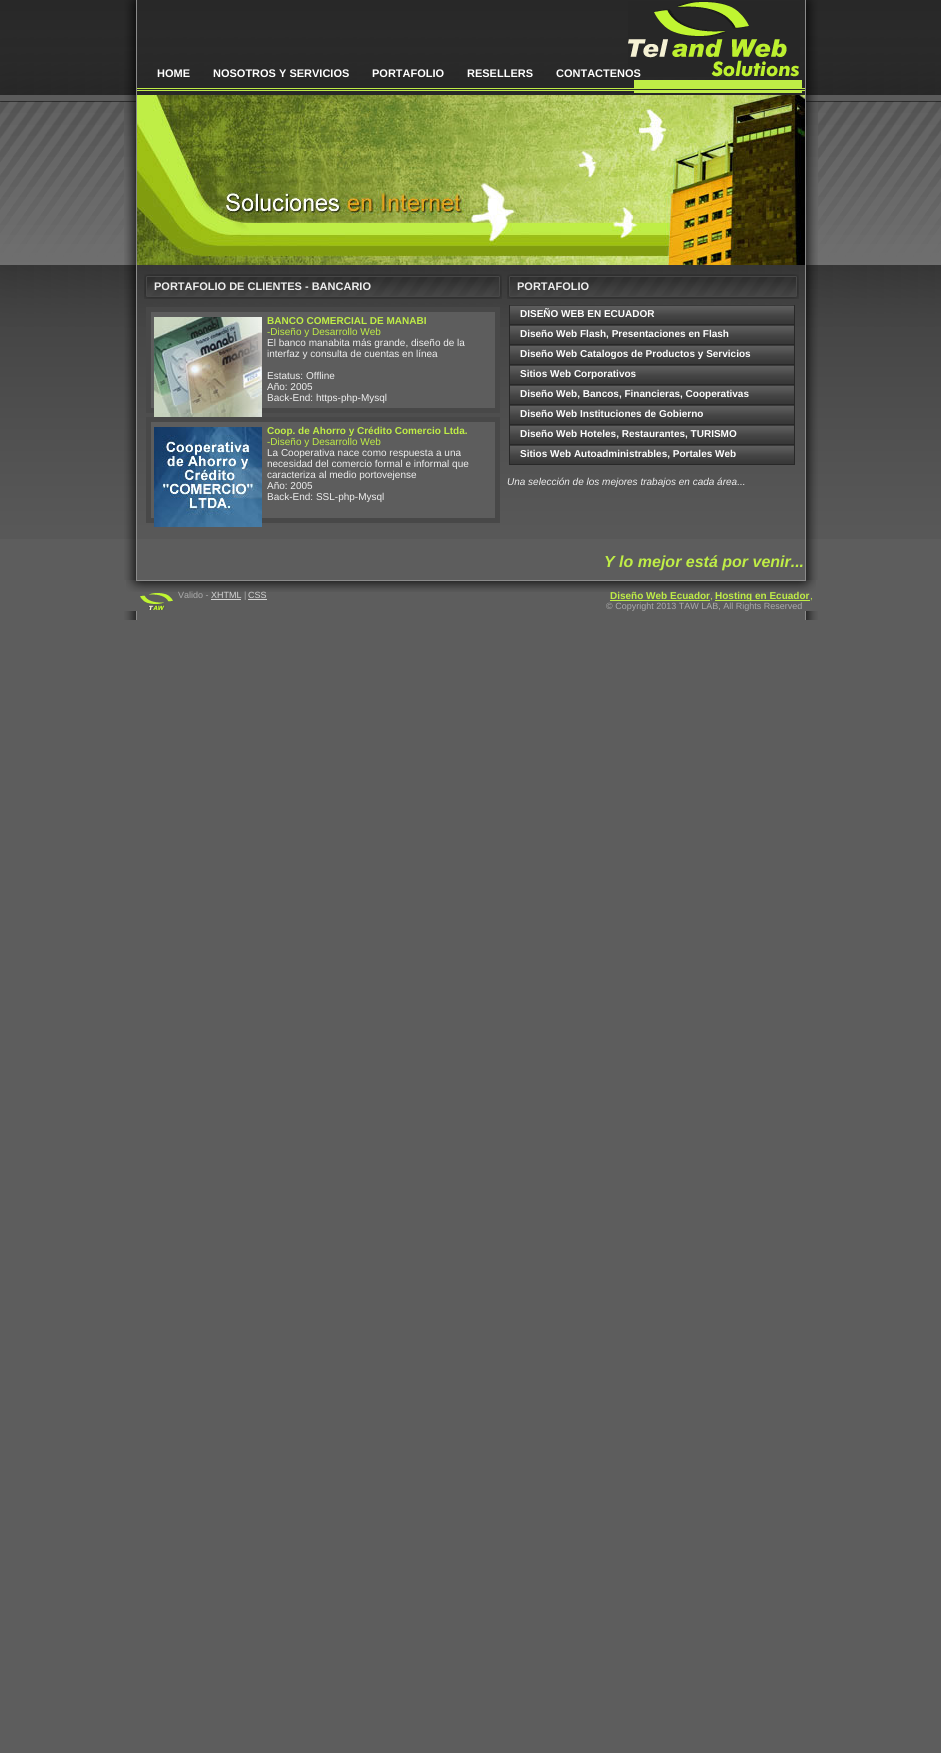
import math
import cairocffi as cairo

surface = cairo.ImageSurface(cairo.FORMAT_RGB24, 941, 1753)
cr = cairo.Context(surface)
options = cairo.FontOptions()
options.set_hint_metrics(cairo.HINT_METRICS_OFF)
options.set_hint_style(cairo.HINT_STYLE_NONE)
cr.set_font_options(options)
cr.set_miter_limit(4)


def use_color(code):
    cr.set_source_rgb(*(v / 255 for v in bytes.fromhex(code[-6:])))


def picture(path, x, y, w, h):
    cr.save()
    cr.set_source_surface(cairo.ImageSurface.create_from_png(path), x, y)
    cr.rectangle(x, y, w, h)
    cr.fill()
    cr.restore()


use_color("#5d5d5d")
cr.paint()
picture("img1.png", 0, 0, 941, 539)
picture("img2.png", 124, 539, 694, 81)
picture("img3.png", 124, 0, 694, 539)
picture("img4.png", 628, 1, 172, 76)
picture("img5.png", 137, 80, 668, 13)
cr.select_font_face("Liberation Sans", cairo.FONT_SLANT_NORMAL, cairo.FONT_WEIGHT_BOLD)
cr.set_font_size(11)
use_color("#ffffff")
cr.move_to(157, 77)
cr.show_text("HOME")
cr.move_to(213, 77)
cr.show_text("NOSOTROS Y SERVICIOS")
cr.move_to(372, 77)
cr.show_text("PORTAFOLIO")
cr.move_to(467, 77)
cr.show_text("RESELLERS")
cr.move_to(556, 77)
cr.show_text("CONTACTENOS")
picture("img6.png", 137, 95, 668, 170)
picture("img7.png", 144, 274, 358, 25)
use_color("#eeeeee")
cr.move_to(154, 290)
cr.show_text("PORTAFOLIO DE CLIENTES - BANCARIO")
use_color("#5d5d5d")
cr.rectangle(148.5, 309.5, 349, 101)
cr.fill_preserve()
use_color("#484848")
cr.set_line_width(5)
cr.stroke()
picture("img8.png", 154, 317, 108, 100)
cr.set_font_size(10)
use_color("#bfed46")
cr.move_to(267, 324)
cr.show_text("BANCO COMERCIAL DE MANABI")
cr.select_font_face("Liberation Sans")
cr.move_to(267, 335)
cr.show_text("-Diseño y Desarrollo Web")
use_color("#eeeeee")
cr.move_to(267, 346)
cr.show_text("El banco manabita más grande, diseño de la")
cr.move_to(267, 357)
cr.show_text("interfaz y consulta de cuentas en línea")
cr.move_to(267, 379)
cr.show_text("Estatus: Offline")
cr.move_to(267, 390)
cr.show_text("Año: 2005")
cr.move_to(267, 401)
cr.show_text("Back-End: https-php-Mysql")
use_color("#5d5d5d")
cr.rectangle(148.5, 419.5, 349, 101)
cr.fill_preserve()
use_color("#484848")
cr.stroke()
picture("img9.png", 154, 427, 108, 100)
cr.select_font_face("Liberation Sans", cairo.FONT_SLANT_NORMAL, cairo.FONT_WEIGHT_BOLD)
use_color("#bfed46")
cr.move_to(267, 434)
cr.show_text("Coop. de Ahorro y Crédito Comercio Ltda.")
cr.select_font_face("Liberation Sans")
cr.move_to(267, 445)
cr.show_text("-Diseño y Desarrollo Web")
use_color("#eeeeee")
cr.move_to(267, 456)
cr.show_text("La Cooperativa nace como respuesta a una")
cr.move_to(267, 467)
cr.show_text("necesidad del comercio formal e informal que")
cr.move_to(267, 478)
cr.show_text("caracteriza al medio portovejense")
cr.move_to(267, 489)
cr.show_text("Año: 2005")
cr.move_to(267, 500)
cr.show_text("Back-End: SSL-php-Mysql")
picture("img10.png", 507, 274, 292, 25)
cr.select_font_face("Liberation Sans", cairo.FONT_SLANT_NORMAL, cairo.FONT_WEIGHT_BOLD)
cr.set_font_size(11)
cr.move_to(517, 290)
cr.show_text("PORTAFOLIO")
picture("img11.png", 510, 305, 284, 20)
use_color("#282828")
cr.rectangle(794, 305, 1, 160)
cr.fill()
cr.rectangle(509, 305, 1, 160)
cr.fill()
cr.set_font_size(10)
use_color("#ffffff")
cr.move_to(520, 317)
cr.show_text("DISEÑO WEB EN ECUADOR")
picture("img11.png", 510, 325, 284, 20)
cr.move_to(520, 337)
cr.show_text("Diseño Web Flash, Presentaciones en Flash")
picture("img11.png", 510, 345, 284, 20)
cr.move_to(520, 357)
cr.show_text("Diseño Web Catalogos de Productos y Servicios")
picture("img11.png", 510, 365, 284, 20)
cr.move_to(520, 377)
cr.show_text("Sitios Web Corporativos")
picture("img11.png", 510, 385, 284, 20)
cr.move_to(520, 397)
cr.show_text("Diseño Web, Bancos, Financieras, Cooperativas")
picture("img11.png", 510, 405, 284, 20)
cr.move_to(520, 417)
cr.show_text("Diseño Web Instituciones de Gobierno")
picture("img11.png", 510, 425, 284, 20)
cr.move_to(520, 437)
cr.show_text("Diseño Web Hoteles, Restaurantes, TURISMO")
picture("img11.png", 510, 445, 284, 20)
cr.move_to(520, 457)
cr.show_text("Sitios Web Autoadministrables, Portales Web")
cr.select_font_face("Liberation Sans", cairo.FONT_SLANT_ITALIC)
use_color("#eeeeee")
cr.move_to(507, 485)
cr.show_text("Una selección de los mejores trabajos en cada área...")
cr.select_font_face("Liberation Sans", cairo.FONT_SLANT_ITALIC, cairo.FONT_WEIGHT_BOLD)
cr.set_font_size(16)
use_color("#bfed46")
cr.move_to(604, 567)
cr.show_text("Y lo mejor está por venir...")
use_color("#5d5d5d")
cr.rectangle(124, 580, 694, 31)
cr.fill()
picture("img12.png", 126, 580, 690, 12)
picture("img13.png", 140, 593, 33, 17)
cr.select_font_face("Liberation Sans")
cr.set_font_size(9)
use_color("#acacac")
cr.move_to(178, 598)
cr.show_text("Valido -")
use_color("#d4d4d4")
cr.move_to(211, 598)
cr.show_text("XHTML")
cr.rectangle(211, 599, 30, 1)
cr.fill()
use_color("#acacac")
cr.move_to(244, 598)
cr.show_text("|")
use_color("#d4d4d4")
cr.move_to(248, 598)
cr.show_text("CSS")
cr.rectangle(248, 599, 19, 1)
cr.fill()
cr.select_font_face("Liberation Sans", cairo.FONT_SLANT_NORMAL, cairo.FONT_WEIGHT_BOLD)
cr.set_font_size(10)
use_color("#bfed46")
cr.move_to(610, 599)
cr.show_text("Diseño Web Ecuador")
cr.rectangle(610, 600, 100, 1)
cr.fill()
cr.select_font_face("Liberation Sans")
cr.move_to(710, 599)
cr.show_text(",")
cr.rectangle(715, 600, 95, 1)
cr.fill()
cr.select_font_face("Liberation Sans", cairo.FONT_SLANT_NORMAL, cairo.FONT_WEIGHT_BOLD)
cr.move_to(715, 599)
cr.show_text("Hosting en Ecuador")
cr.select_font_face("Liberation Sans")
cr.move_to(810, 599)
cr.show_text(",")
cr.set_font_size(9)
use_color("#acacac")
cr.move_to(606, 609)
cr.show_text("© Copyright 2013 TAW LAB, All Rights Reserved")
surface.write_to_png("result.png")
